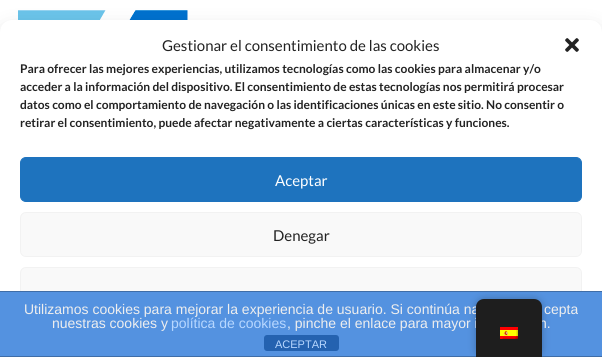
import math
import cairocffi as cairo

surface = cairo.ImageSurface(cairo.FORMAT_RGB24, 602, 357)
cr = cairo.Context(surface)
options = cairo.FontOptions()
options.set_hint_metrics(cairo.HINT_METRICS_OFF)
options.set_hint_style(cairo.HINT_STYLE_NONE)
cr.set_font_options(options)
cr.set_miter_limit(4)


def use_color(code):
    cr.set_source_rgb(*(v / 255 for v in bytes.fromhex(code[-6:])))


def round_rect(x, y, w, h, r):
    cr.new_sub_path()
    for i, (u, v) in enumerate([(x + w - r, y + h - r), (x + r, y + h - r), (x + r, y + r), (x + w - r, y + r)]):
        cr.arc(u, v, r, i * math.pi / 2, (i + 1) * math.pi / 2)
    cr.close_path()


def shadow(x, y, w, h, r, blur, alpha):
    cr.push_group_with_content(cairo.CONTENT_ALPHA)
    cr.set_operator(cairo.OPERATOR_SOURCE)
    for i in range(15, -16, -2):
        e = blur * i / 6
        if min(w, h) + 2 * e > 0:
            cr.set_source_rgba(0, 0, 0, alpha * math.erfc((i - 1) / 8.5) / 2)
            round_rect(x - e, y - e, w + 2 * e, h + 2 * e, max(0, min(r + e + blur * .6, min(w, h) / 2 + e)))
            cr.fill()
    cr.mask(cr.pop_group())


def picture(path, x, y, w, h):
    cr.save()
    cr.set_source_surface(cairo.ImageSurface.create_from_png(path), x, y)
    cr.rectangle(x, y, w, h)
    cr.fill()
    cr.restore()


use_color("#ffffff")
cr.paint()
picture("img1.png", 18, 10, 520, 10)
use_color("#000000")
shadow(0, 30, 602, 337, 12, 10, 0.19)
use_color("#ffffff")
round_rect(0, 20, 602, 337, 12)
cr.fill()
cr.select_font_face("Lato")
cr.set_font_size(15)
use_color("#222222")
cr.move_to(162, 51)
cr.show_text("Gestionar el consentimiento de las cookies")
picture("img2.png", 565, 38, 14, 14)
cr.select_font_face("Lato", cairo.FONT_SLANT_NORMAL, cairo.FONT_WEIGHT_BOLD)
cr.set_font_size(12)
cr.move_to(20, 73)
cr.show_text("Para ofrecer las mejores experiencias, utilizamos tecnologías como las cookies para almacenar y/o")
cr.move_to(20, 91)
cr.show_text("acceder a la información del dispositivo. El consentimiento de estas tecnologías nos permitirá procesar")
cr.move_to(20, 109)
cr.show_text("datos como el comportamiento de navegación o las identificaciones únicas en este sitio. No consentir o")
cr.move_to(20, 127)
cr.show_text("retirar el consentimiento, puede afectar negativamente a ciertas características y funciones.")
use_color("#1e73be")
round_rect(20.5, 157.5, 561, 44, 5.5)
cr.fill_preserve()
cr.set_line_width(1)
cr.stroke()
cr.select_font_face("Lato")
cr.set_font_size(15)
use_color("#ffffff")
cr.move_to(275, 186)
cr.show_text("Aceptar")
use_color("#f9f9f9")
round_rect(20.5, 212.5, 561, 44, 5.5)
cr.fill_preserve()
use_color("#f2f2f2")
cr.stroke()
use_color("#222222")
cr.move_to(273, 241)
cr.show_text("Denegar")
use_color("#f9f9f9")
round_rect(20.5, 267.5, 561, 44, 5.5)
cr.fill_preserve()
use_color("#f2f2f2")
cr.stroke()
use_color("#5492e0")
cr.rectangle(0, 292, 602, 64)
cr.fill()
use_color("#3f6da7")
cr.rectangle(0, 291, 602, 1)
cr.fill()
cr.rectangle(0, 356, 602, 1)
cr.fill()
use_color("#000000")
shadow(476, 299, 66, 58, 8, 4, 0.25)
cr.select_font_face("Liberation Sans")
cr.set_font_size(14)
use_color("#eeeeee")
cr.move_to(24, 314)
cr.show_text("Utilizamos cookies para mejorar la experiencia de usuario. Si continúa na")
cr.move_to(287, 328)
cr.show_text(", pinche el enlace para mayor i")
cr.move_to(539, 328)
cr.show_text("n.")
use_color("#1e1e1e")
cr.new_path()
cr.move_to(484, 299)
cr.line_to(534, 299)
cr.curve_to(538.5, 299, 542, 302.5, 542, 307)
cr.line_to(542, 357)
cr.line_to(476, 357)
cr.line_to(476, 307)
cr.curve_to(476, 302.5, 479.5, 299, 484, 299)
cr.close_path()
cr.fill()
picture("img3.png", 500, 327, 18, 12)
use_color("#eeeeee")
cr.move_to(544, 314)
cr.show_text("cepta")
cr.move_to(52, 328)
cr.show_text("nuestras cookies y")
use_color("#b7d7ff")
cr.move_to(171, 328)
cr.show_text("política de cookies")
use_color("#2462b0")
round_rect(264, 335, 75, 16, 3)
cr.fill()
cr.set_font_size(11)
use_color("#b7d7ff")
cr.move_to(275, 348)
cr.show_text("ACEPTAR")
surface.write_to_png("result.png")
